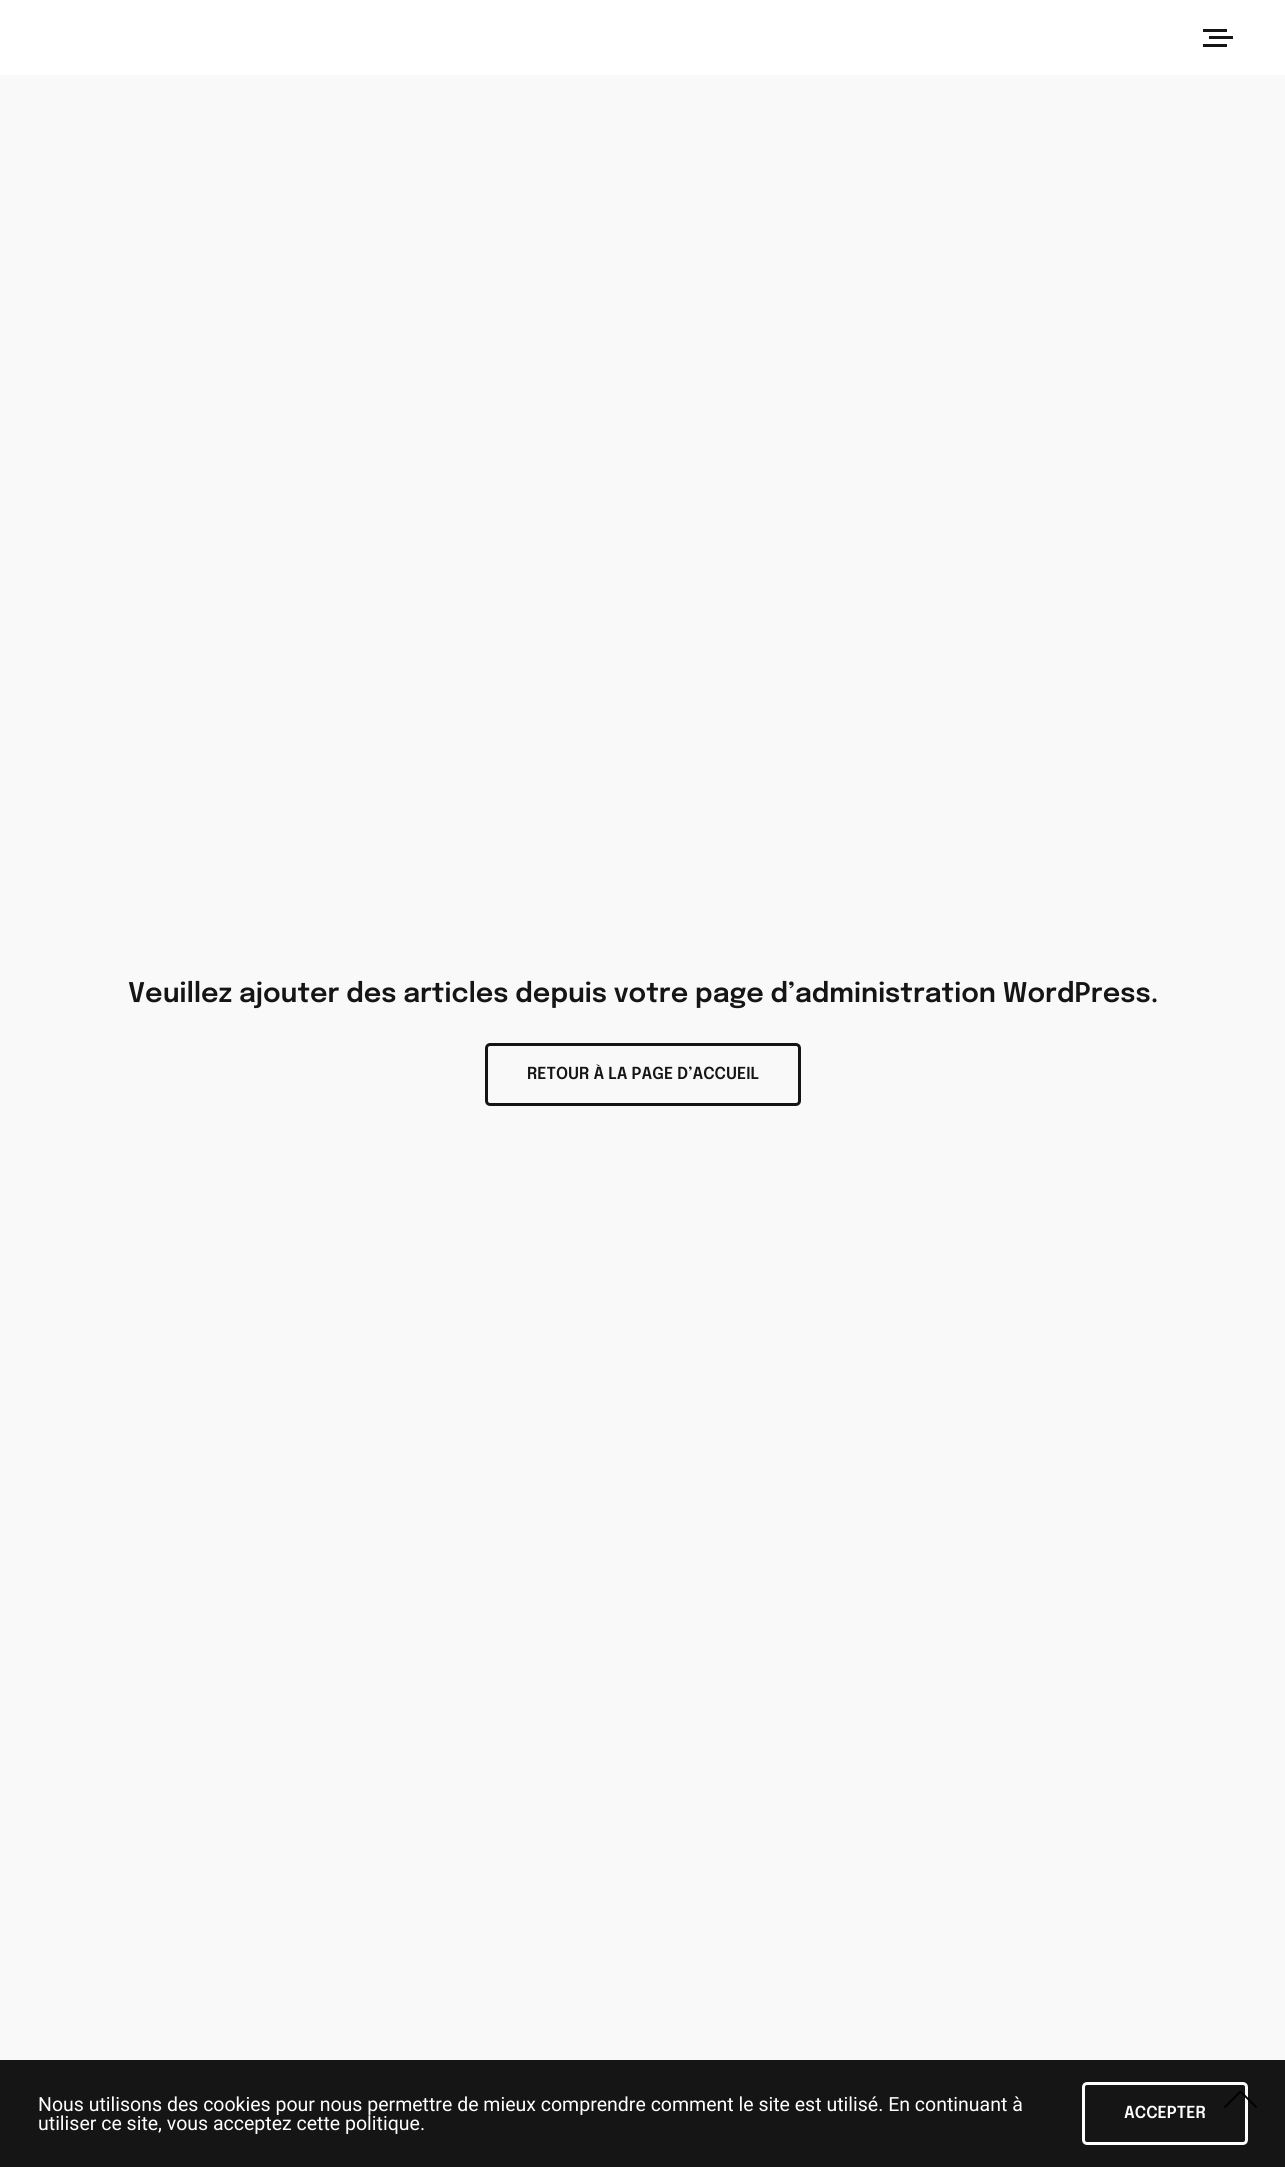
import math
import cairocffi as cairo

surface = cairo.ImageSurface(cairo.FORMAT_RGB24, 1285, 2167)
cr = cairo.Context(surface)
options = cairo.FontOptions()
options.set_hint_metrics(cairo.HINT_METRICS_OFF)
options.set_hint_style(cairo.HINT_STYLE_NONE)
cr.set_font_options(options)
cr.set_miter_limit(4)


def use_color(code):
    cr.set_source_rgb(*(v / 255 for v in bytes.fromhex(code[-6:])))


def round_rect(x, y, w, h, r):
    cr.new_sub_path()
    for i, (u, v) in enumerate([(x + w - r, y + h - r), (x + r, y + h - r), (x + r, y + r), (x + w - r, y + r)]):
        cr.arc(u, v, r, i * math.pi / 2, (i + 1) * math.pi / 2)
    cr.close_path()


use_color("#f9f9f9")
cr.paint()
use_color("#ffffff")
cr.rectangle(0, 0, 1285, 75)
cr.fill()
use_color("#151515")
cr.rectangle(1203, 29, 24, 3)
cr.fill()
cr.rectangle(1209, 36, 24, 3)
cr.fill()
cr.rectangle(1203, 44, 24, 3)
cr.fill()
cr.select_font_face("Epilogue SemiBold")
cr.set_font_size(27)
cr.move_to(128, 1002)
cr.show_text("Veuillez ajouter des articles depuis votre page d’administration WordPress.")
round_rect(486.5, 1044.5, 313, 60, 3.5)
cr.set_line_width(3)
cr.stroke()
cr.set_font_size(16.5)
cr.move_to(527, 1079)
cr.show_text("RETOUR À LA PAGE D’ACCUEIL")
cr.rectangle(0, 2060, 1285, 107)
cr.fill()
cr.select_font_face("Roboto")
cr.set_font_size(19.5)
use_color("#ffffff")
cr.move_to(38, 2111)
cr.show_text("Nous utilisons des cookies pour nous permettre de mieux comprendre comment le site est utilisé. En continuant à")
cr.move_to(38, 2130)
cr.show_text("utiliser ce site, vous acceptez cette politique.")
round_rect(1083.5, 2083.5, 163, 60, 3.5)
cr.stroke()
cr.select_font_face("Epilogue SemiBold")
cr.set_font_size(16.5)
cr.move_to(1124, 2118)
cr.show_text("ACCEPTER")
cr.new_path()
cr.move_to(1224.5, 2107.5)
cr.line_to(1240.5, 2091.5)
cr.line_to(1256.5, 2107.5)
use_color("#000000")
cr.set_line_width(1.9)
cr.set_line_join(cairo.LINE_JOIN_BEVEL)
cr.stroke()
surface.write_to_png("result.png")
